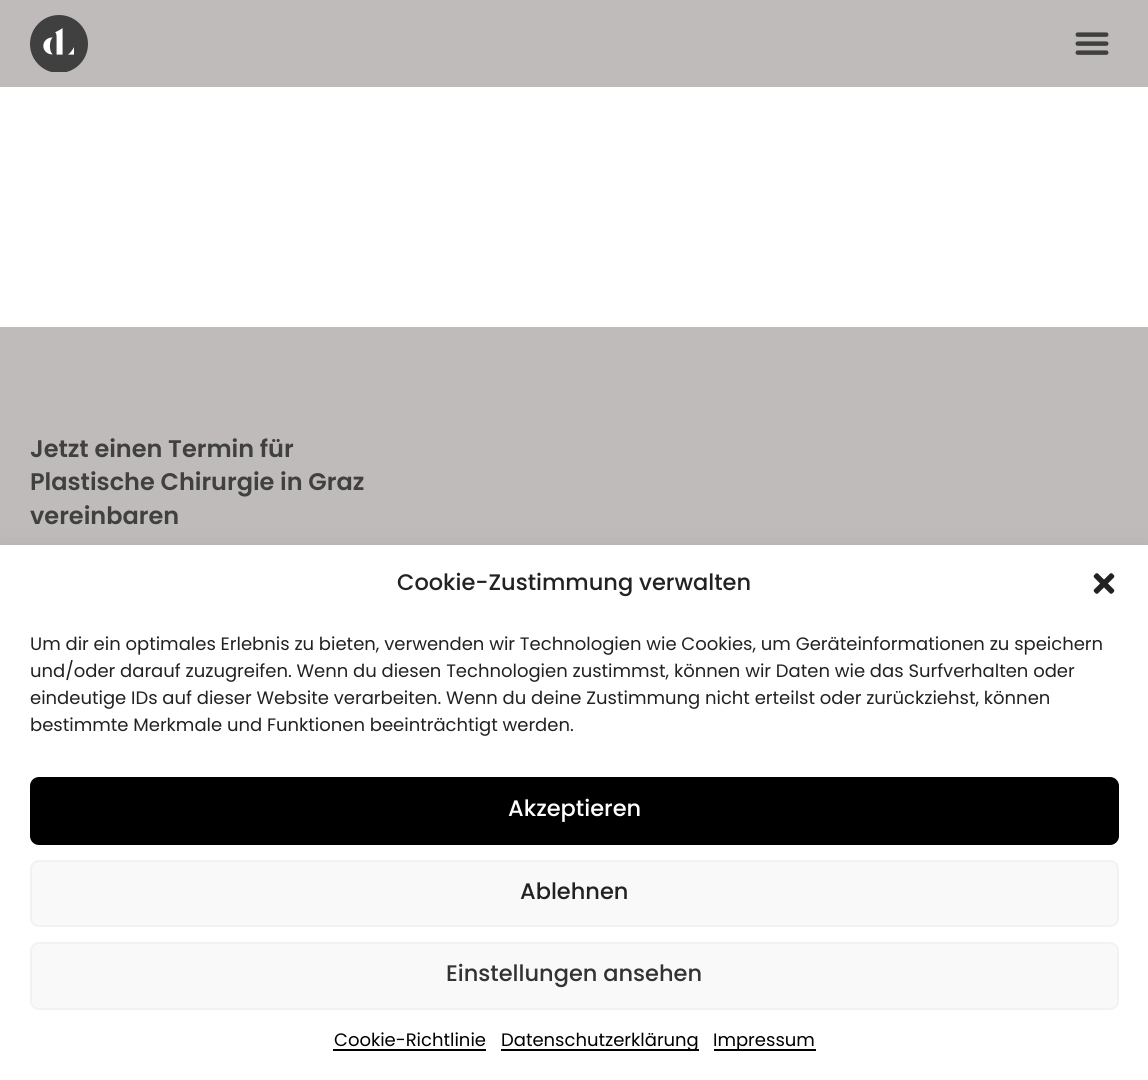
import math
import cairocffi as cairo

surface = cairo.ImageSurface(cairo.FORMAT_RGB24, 1148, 1080)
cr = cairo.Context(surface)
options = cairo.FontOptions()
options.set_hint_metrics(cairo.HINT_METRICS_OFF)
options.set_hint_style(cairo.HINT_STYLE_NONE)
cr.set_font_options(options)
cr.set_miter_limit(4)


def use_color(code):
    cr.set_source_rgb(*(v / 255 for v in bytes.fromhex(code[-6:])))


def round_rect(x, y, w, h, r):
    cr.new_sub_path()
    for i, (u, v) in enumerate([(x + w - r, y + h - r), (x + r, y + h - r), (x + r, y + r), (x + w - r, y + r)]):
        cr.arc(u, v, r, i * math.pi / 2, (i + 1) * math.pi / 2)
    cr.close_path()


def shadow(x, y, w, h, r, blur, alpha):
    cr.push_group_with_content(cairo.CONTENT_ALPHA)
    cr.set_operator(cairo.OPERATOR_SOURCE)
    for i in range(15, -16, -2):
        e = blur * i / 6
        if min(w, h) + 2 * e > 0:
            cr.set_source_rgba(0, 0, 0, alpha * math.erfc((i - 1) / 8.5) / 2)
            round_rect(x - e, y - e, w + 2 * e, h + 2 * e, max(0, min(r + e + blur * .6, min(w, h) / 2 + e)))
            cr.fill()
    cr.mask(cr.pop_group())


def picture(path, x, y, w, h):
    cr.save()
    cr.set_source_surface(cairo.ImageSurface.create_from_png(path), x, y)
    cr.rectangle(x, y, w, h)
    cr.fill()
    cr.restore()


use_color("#ffffff")
cr.paint()
use_color("#bfbbba")
cr.rectangle(0, 0, 1148, 87)
cr.fill()
picture("img1.png", 30, 15, 58, 57)
picture("img2.png", 1075, 32, 34, 23)
cr.rectangle(0, 327, 1148, 218)
cr.fill()
cr.select_font_face("Poppins SemiBold")
cr.set_font_size(24)
use_color("#404040")
cr.move_to(30, 457)
cr.show_text("Jetzt einen Termin für")
cr.move_to(30, 490)
cr.show_text("Plastische Chirurgie in Graz")
cr.move_to(30, 524)
cr.show_text("vereinbaren")
use_color("#000000")
shadow(0, 560, 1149, 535, 0, 15, 0.19)
use_color("#ffffff")
cr.rectangle(0, 545, 1148, 535)
cr.fill()
cr.select_font_face("Poppins Medium")
cr.set_font_size(22.5)
use_color("#222222")
cr.move_to(397, 590)
cr.show_text("Cookie-Zustimmung verwalten")
picture("img3.png", 1093, 573, 22, 21)
cr.select_font_face("Poppins")
cr.set_font_size(18)
cr.move_to(30, 650)
cr.show_text("Um dir ein optimales Erlebnis zu bieten, verwenden wir Technologien wie Cookies, um Geräteinformationen zu speichern")
cr.move_to(30, 677)
cr.show_text("und/oder darauf zuzugreifen. Wenn du diesen Technologien zustimmst, können wir Daten wie das Surfverhalten oder")
cr.move_to(30, 704)
cr.show_text("eindeutige IDs auf dieser Website verarbeiten. Wenn du deine Zustimmung nicht erteilst oder zurückziehst, können")
cr.move_to(30, 731)
cr.show_text("bestimmte Merkmale und Funktionen beeinträchtigt werden.")
use_color("#000000")
round_rect(31, 778, 1087, 66, 8)
cr.fill_preserve()
cr.stroke()
cr.select_font_face("Poppins Medium")
cr.set_font_size(22.5)
use_color("#ffffff")
cr.move_to(508, 816)
cr.show_text("Akzeptieren")
use_color("#f9f9f9")
round_rect(31, 861, 1087, 65, 8)
cr.fill_preserve()
use_color("#f2f2f2")
cr.stroke()
use_color("#222222")
cr.move_to(520, 899)
cr.show_text("Ablehnen")
use_color("#f9f9f9")
round_rect(31, 943, 1087, 66, 8)
cr.fill_preserve()
use_color("#f2f2f2")
cr.stroke()
use_color("#333333")
cr.move_to(446, 981)
cr.show_text("Einstellungen ansehen")
cr.select_font_face("Poppins")
cr.set_font_size(18)
use_color("#000000")
cr.move_to(334, 1046)
cr.show_text("Cookie-Richtlinie")
cr.rectangle(333, 1049, 153, 2)
cr.fill()
cr.rectangle(501, 1049, 198, 2)
cr.fill()
cr.move_to(501, 1046)
cr.show_text("Datenschutzerklärung")
cr.rectangle(714, 1049, 102, 2)
cr.fill()
cr.move_to(713, 1046)
cr.show_text("Impressum")
surface.write_to_png("result.png")
